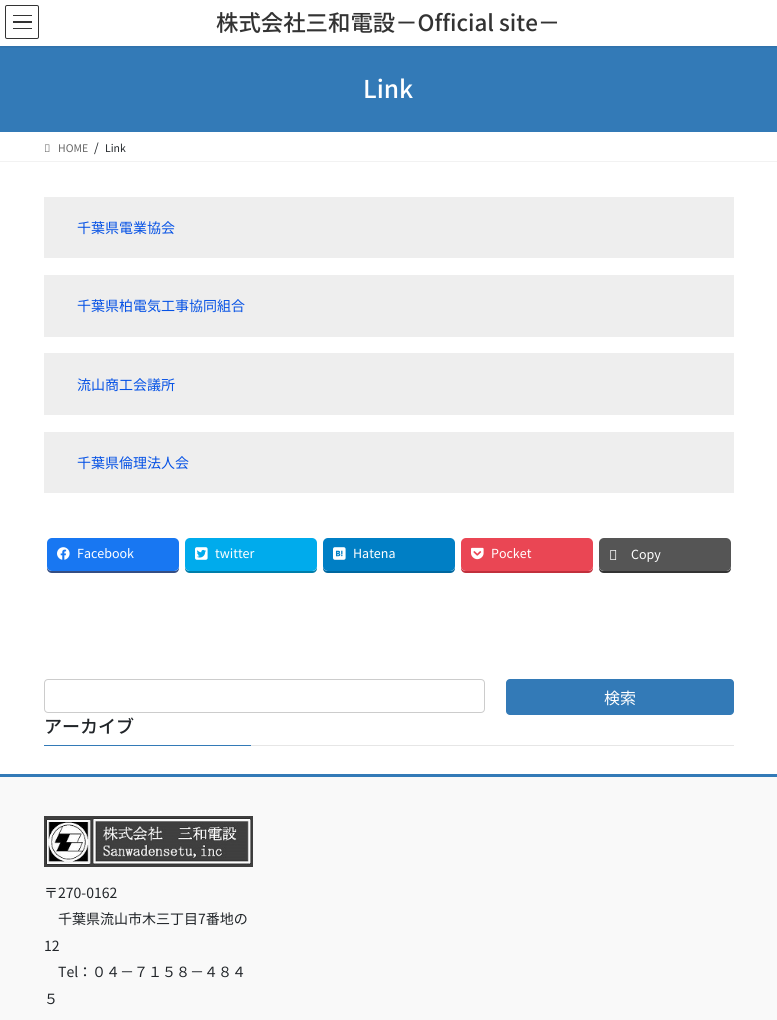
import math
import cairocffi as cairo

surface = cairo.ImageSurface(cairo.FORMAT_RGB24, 777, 1020)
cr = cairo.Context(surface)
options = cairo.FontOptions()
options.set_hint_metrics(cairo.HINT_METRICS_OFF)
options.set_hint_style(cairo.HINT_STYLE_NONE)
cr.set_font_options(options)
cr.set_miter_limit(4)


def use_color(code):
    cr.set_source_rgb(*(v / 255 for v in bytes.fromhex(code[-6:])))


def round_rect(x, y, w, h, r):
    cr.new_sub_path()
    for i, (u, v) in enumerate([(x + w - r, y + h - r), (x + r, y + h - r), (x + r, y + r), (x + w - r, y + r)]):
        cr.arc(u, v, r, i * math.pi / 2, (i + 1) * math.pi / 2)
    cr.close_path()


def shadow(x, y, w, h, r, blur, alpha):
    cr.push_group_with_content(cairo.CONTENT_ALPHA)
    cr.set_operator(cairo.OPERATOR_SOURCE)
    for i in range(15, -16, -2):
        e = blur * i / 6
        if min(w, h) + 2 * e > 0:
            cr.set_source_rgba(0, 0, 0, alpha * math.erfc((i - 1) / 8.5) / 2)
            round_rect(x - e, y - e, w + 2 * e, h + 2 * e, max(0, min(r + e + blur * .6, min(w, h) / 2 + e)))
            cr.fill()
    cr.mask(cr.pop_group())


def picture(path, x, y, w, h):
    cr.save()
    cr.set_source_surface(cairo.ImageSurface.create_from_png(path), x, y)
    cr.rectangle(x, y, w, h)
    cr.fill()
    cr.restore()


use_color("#ffffff")
cr.paint()
use_color("#337ab7")
cr.rectangle(0, 46, 777, 86)
cr.fill()
cr.save()
cr.rectangle(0, 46, 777, 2)
cr.clip()
use_color("#000000")
shadow(0, 1, 777, 46, 0, 1.5, 0.1)
cr.restore()
use_color("#333333")
cr.rectangle(13, 15, 19, 1)
cr.fill()
cr.rectangle(13, 21, 19, 2)
cr.fill()
cr.rectangle(13, 28, 19, 1)
cr.fill()
round_rect(5.5, 5.5, 33, 33, 1.5)
cr.set_line_width(1)
cr.stroke()
cr.select_font_face("Noto Sans JP Medium")
cr.set_font_size(22.4)
cr.move_to(216, 31)
cr.show_text("株式会社三和電設－Official site－")
cr.set_font_size(24.5)
use_color("#ffffff")
cr.move_to(363, 98)
cr.show_text("Link")
use_color("#f2f2f2")
cr.rectangle(0, 161, 777, 1)
cr.fill()
picture("img1.png", 45, 144, 5, 8)
cr.select_font_face("Noto Sans JP")
cr.set_font_size(10.5)
use_color("#666666")
cr.move_to(58, 152)
cr.show_text("HOME")
cr.set_font_size(12)
use_color("#212529")
cr.move_to(94, 152)
cr.show_text("/")
cr.set_font_size(10.5)
cr.move_to(105, 152)
cr.show_text("Link")
use_color("#eeeeee")
cr.rectangle(44, 197, 690, 61)
cr.fill()
cr.set_font_size(14)
use_color("#0652e5")
cr.move_to(77, 233)
cr.show_text("千葉県電業協会")
use_color("#eeeeee")
cr.rectangle(44, 275, 690, 62)
cr.fill()
use_color("#0652e5")
cr.move_to(77, 311)
cr.show_text("千葉県柏電気工事協同組合")
use_color("#eeeeee")
cr.rectangle(44, 353, 690, 62)
cr.fill()
use_color("#0652e5")
cr.move_to(77, 390)
cr.show_text("流山商工会議所")
use_color("#eeeeee")
cr.rectangle(44, 432, 690, 61)
cr.fill()
use_color("#0652e5")
cr.move_to(77, 468)
cr.show_text("千葉県倫理法人会")
use_color("#344e84")
cr.new_path()
cr.move_to(47, 566)
cr.line_to(47, 568)
cr.curve_to(47, 571, 49, 573, 52, 573)
cr.line_to(174, 573)
cr.curve_to(177, 573, 179, 571, 179, 568)
cr.line_to(179, 566)
cr.curve_to(179, 569, 177, 571, 174, 571)
cr.line_to(52, 571)
cr.curve_to(49, 571, 47, 569, 47, 566)
cr.close_path()
cr.fill()
use_color("#1877f2")
round_rect(47, 538, 132, 33, 5)
cr.fill()
picture("img2.png", 57, 547, 13, 13)
cr.set_font_size(12.5)
use_color("#ffffff")
cr.move_to(77, 558)
cr.show_text("Facebook")
use_color("#007eaa")
cr.new_path()
cr.move_to(185, 566)
cr.line_to(185, 568)
cr.curve_to(185, 571, 187, 573, 190, 573)
cr.line_to(312, 573)
cr.curve_to(315, 573, 317, 571, 317, 568)
cr.line_to(317, 566)
cr.curve_to(317, 569, 315, 571, 312, 571)
cr.line_to(190, 571)
cr.curve_to(187, 571, 185, 569, 185, 566)
cr.close_path()
cr.fill()
use_color("#00abec")
round_rect(185, 538, 132, 33, 5)
cr.fill()
picture("img3.png", 195, 547, 13, 13)
use_color("#ffffff")
cr.move_to(215, 558)
cr.show_text("twitter")
use_color("#00679f")
cr.new_path()
cr.move_to(323, 566)
cr.line_to(323, 568)
cr.curve_to(323, 571, 325, 573, 328, 573)
cr.line_to(450, 573)
cr.curve_to(453, 573, 455, 571, 455, 568)
cr.line_to(455, 566)
cr.curve_to(455, 569, 453, 571, 450, 571)
cr.line_to(328, 571)
cr.curve_to(325, 571, 323, 569, 323, 566)
cr.close_path()
cr.fill()
use_color("#007fc5")
round_rect(323, 538, 132, 33, 5)
cr.fill()
picture("img4.png", 333, 547, 13, 13)
use_color("#ffffff")
cr.move_to(353, 558)
cr.show_text("Hatena")
use_color("#c1303c")
cr.new_path()
cr.move_to(461, 566)
cr.line_to(461, 568)
cr.curve_to(461, 571, 463, 573, 466, 573)
cr.line_to(588, 573)
cr.curve_to(591, 573, 593, 571, 593, 568)
cr.line_to(593, 566)
cr.curve_to(593, 569, 591, 571, 588, 571)
cr.line_to(466, 571)
cr.curve_to(463, 571, 461, 569, 461, 566)
cr.close_path()
cr.fill()
use_color("#ea4654")
round_rect(461, 538, 132, 33, 5)
cr.fill()
picture("img5.png", 471, 547, 13, 13)
use_color("#ffffff")
cr.move_to(491, 558)
cr.show_text("Pocket")
use_color("#333333")
cr.new_path()
cr.move_to(599, 566)
cr.line_to(599, 568)
cr.curve_to(599, 571, 601, 573, 604, 573)
cr.line_to(726, 573)
cr.curve_to(729, 573, 731, 571, 731, 568)
cr.line_to(731, 566)
cr.curve_to(731, 569, 729, 571, 726, 571)
cr.line_to(604, 571)
cr.curve_to(601, 571, 599, 569, 599, 566)
cr.close_path()
cr.fill()
use_color("#555555")
round_rect(599, 538, 132, 33, 5)
cr.fill()
picture("img6.png", 610, 550, 7, 10)
use_color("#ffffff")
cr.move_to(631, 559)
cr.show_text("Copy")
round_rect(44.5, 679.5, 440, 33, 3.5)
use_color("#cccccc")
cr.stroke()
use_color("#337ab7")
round_rect(506, 679, 228, 36, 4)
cr.fill()
cr.set_font_size(16)
use_color("#ffffff")
cr.move_to(604, 704)
cr.show_text("検索")
use_color("#e6e6e6")
cr.rectangle(251, 745, 483, 1)
cr.fill()
cr.select_font_face("Noto Sans JP Medium")
cr.set_font_size(18)
use_color("#212529")
cr.move_to(44, 733)
cr.show_text("アーカイブ")
use_color("#337ab7")
cr.rectangle(44, 745, 207, 1)
cr.fill()
use_color("#f9f9f9")
cr.rectangle(0, 777, 777, 243)
cr.fill()
use_color("#337ab7")
cr.rectangle(0, 774, 777, 3)
cr.fill()
picture("img7.png", 44, 816, 209, 51)
cr.select_font_face("Noto Sans JP")
cr.set_font_size(14)
use_color("#212529")
cr.move_to(44, 898)
cr.show_text("〒270-0162")
cr.move_to(58, 924)
cr.show_text("千葉県流山市木三丁目7番地の")
cr.move_to(44, 951)
cr.show_text("12")
cr.move_to(58, 977)
cr.show_text("Tel：０４－７１５８－４８４")
cr.move_to(44, 1004)
cr.show_text("５")
surface.write_to_png("result.png")
